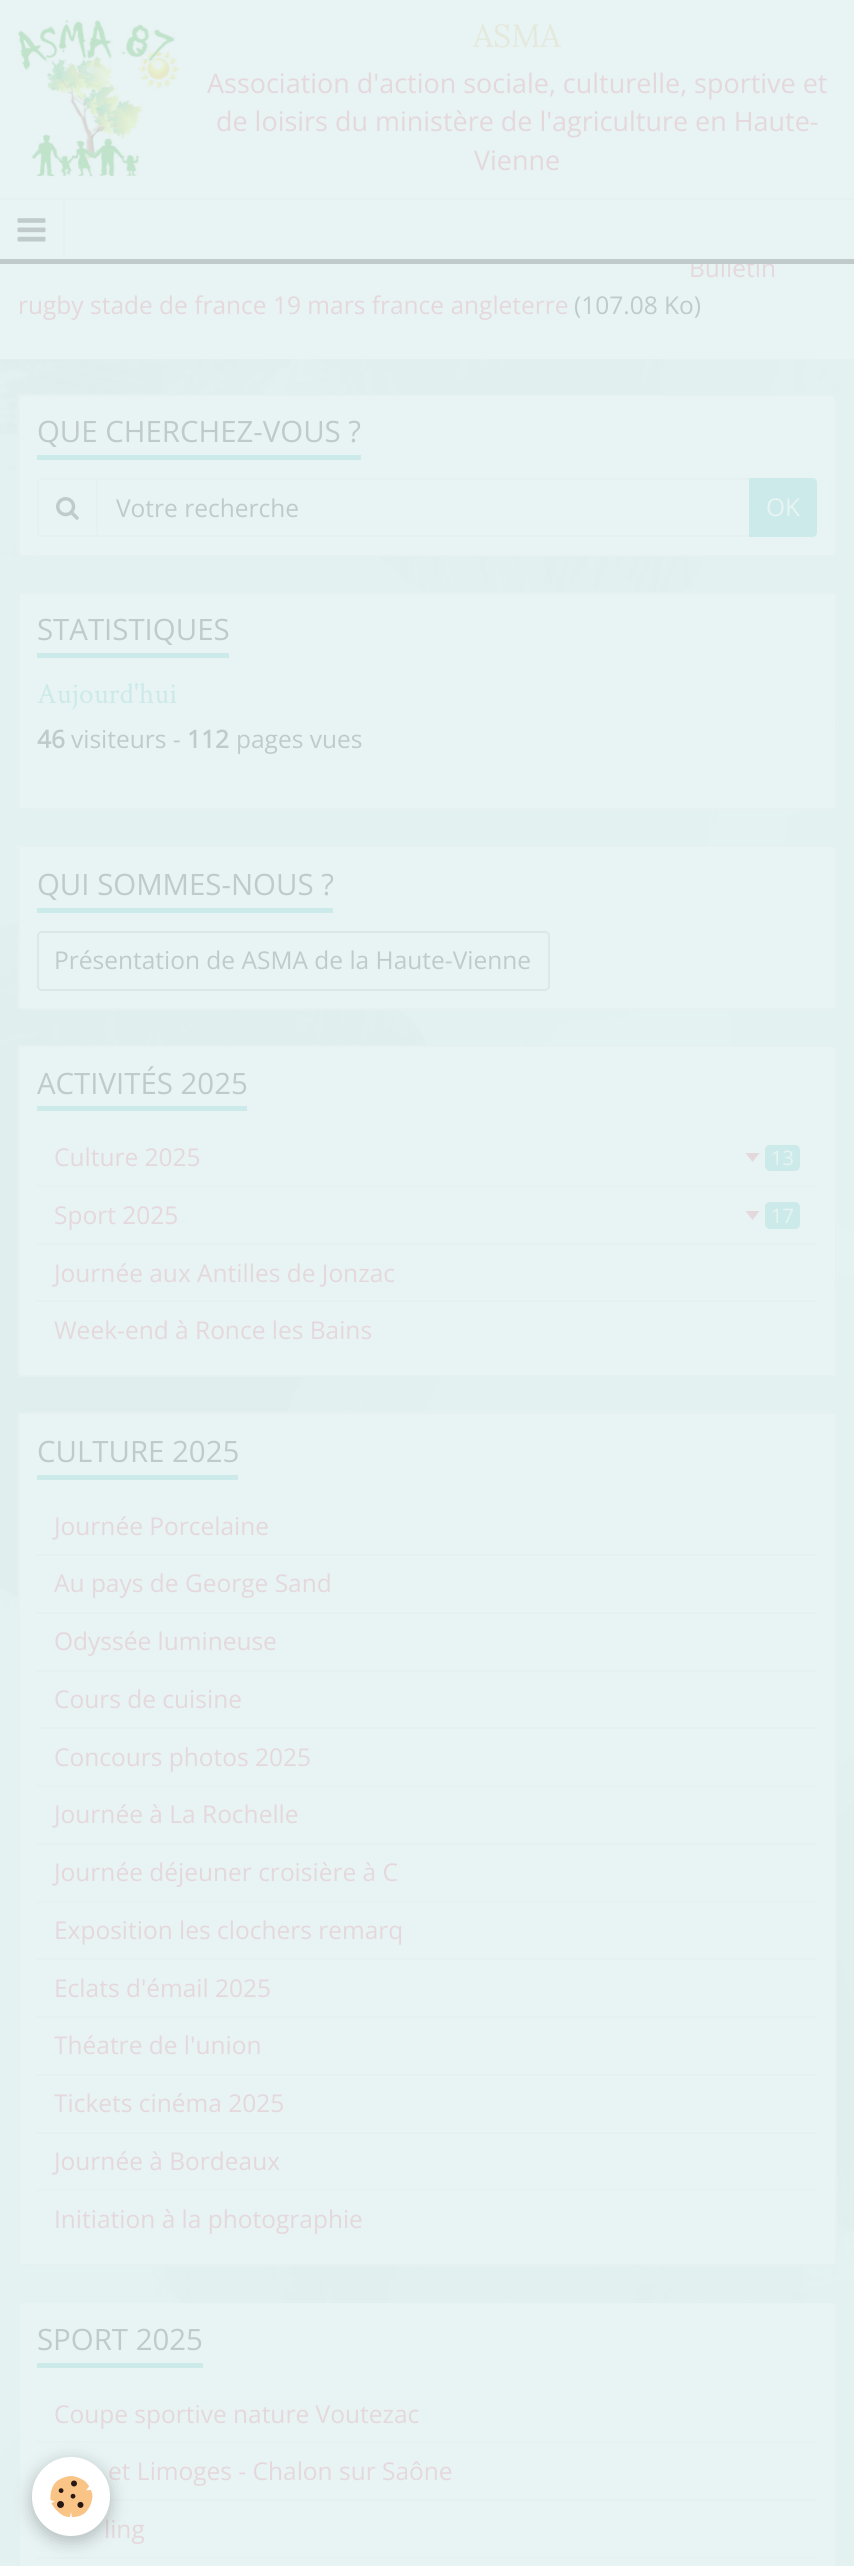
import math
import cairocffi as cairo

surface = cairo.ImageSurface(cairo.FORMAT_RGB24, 854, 2566)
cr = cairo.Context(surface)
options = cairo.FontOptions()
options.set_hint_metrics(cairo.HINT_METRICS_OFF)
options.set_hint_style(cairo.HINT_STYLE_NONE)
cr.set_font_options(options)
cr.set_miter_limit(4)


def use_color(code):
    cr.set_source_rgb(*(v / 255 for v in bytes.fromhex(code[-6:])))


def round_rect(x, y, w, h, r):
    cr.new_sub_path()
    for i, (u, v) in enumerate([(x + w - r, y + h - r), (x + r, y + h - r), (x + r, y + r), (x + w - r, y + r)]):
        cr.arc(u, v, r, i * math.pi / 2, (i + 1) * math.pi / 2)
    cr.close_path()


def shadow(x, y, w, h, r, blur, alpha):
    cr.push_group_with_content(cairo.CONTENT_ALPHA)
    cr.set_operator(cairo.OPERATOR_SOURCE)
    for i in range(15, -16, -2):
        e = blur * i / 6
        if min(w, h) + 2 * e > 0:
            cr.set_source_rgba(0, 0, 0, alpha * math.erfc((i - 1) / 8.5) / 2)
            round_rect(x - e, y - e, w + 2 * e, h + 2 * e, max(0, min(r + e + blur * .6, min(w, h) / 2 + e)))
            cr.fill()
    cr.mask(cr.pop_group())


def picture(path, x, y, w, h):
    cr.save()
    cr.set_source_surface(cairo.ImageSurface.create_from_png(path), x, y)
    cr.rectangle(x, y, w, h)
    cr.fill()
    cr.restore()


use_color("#e4f1f1")
cr.paint()
picture("img1.png", 0, 359, 854, 2207)
use_color("#e8f3f3")
cr.rectangle(0, 264, 854, 95)
cr.fill()
cr.select_font_face("Open Sans")
cr.set_font_size(24.5)
use_color("#e5d8dc")
cr.move_to(689, 277)
cr.show_text("Bulletin")
use_color("#e8f3f3")
cr.rectangle(0, 0, 854, 259)
cr.fill()
use_color("#c0caca")
cr.rectangle(0, 259, 854, 5)
cr.fill()
picture("img2.png", 17, 19, 163, 158)
cr.select_font_face("Lora")
cr.set_font_size(32)
use_color("#e4e9dc")
cr.move_to(473, 47)
cr.show_text("ASMA")
cr.select_font_face("Open Sans")
cr.set_font_size(26.95)
use_color("#e5d8dc")
cr.move_to(207, 93)
cr.show_text("Association d'action sociale, culturelle, sportive et")
cr.move_to(216, 131)
cr.show_text("de loisirs du ministère de l'agriculture en Haute-")
cr.move_to(474, 170)
cr.show_text("Vienne")
use_color("#e5f0f0")
cr.rectangle(0, 198, 854, 2)
cr.fill()
cr.new_path()
cr.move_to(65, 200)
cr.line_to(65, 259)
cr.line_to(63, 257)
cr.line_to(63, 201)
cr.close_path()
cr.fill()
picture("img3.png", 17, 218, 29, 24)
cr.set_font_size(24.5)
use_color("#e5d8dc")
cr.move_to(18, 314)
cr.show_text("rugby stade de france 19 mars france angleterre")
use_color("#c0caca")
cr.move_to(574, 314)
cr.show_text("(107.08 Ko)")
use_color("#e8f3f3")
cr.rectangle(19, 395, 817, 161)
cr.fill_preserve()
use_color("#e5f0f0")
cr.stroke()
use_color("#cceae9")
cr.rectangle(37, 455, 324, 5)
cr.fill()
cr.set_font_size(29.4)
use_color("#c0caca")
cr.move_to(37, 442)
cr.show_text("QUE CHERCHEZ-VOUS ?")
cr.new_path()
cr.move_to(42, 479)
cr.line_to(97, 479)
cr.line_to(97, 536)
cr.line_to(42, 536)
cr.curve_to(40, 536, 38, 534, 38, 532)
cr.line_to(38, 483)
cr.curve_to(38, 481, 40, 479, 42, 479)
cr.close_path()
use_color("#e5f0f0")
cr.stroke()
picture("img4.png", 56, 497, 23, 23)
cr.rectangle(97, 479, 653, 57)
cr.stroke()
cr.set_font_size(24.5)
use_color("#c0caca")
cr.move_to(116, 517)
cr.show_text("Votre recherche")
use_color("#cceae9")
cr.new_path()
cr.move_to(749, 478)
cr.line_to(812, 478)
cr.curve_to(815, 478, 817, 480, 817, 483)
cr.line_to(817, 532)
cr.curve_to(817, 535, 815, 537, 812, 537)
cr.line_to(749, 537)
cr.close_path()
cr.fill()
use_color("#e8f3f3")
cr.move_to(766, 516)
cr.show_text("OK")
cr.rectangle(19, 593, 817, 216)
cr.fill_preserve()
use_color("#e5f0f0")
cr.stroke()
use_color("#cceae9")
cr.rectangle(37, 653, 192, 5)
cr.fill()
cr.set_font_size(29.4)
use_color("#c0caca")
cr.move_to(37, 640)
cr.show_text("STATISTIQUES")
cr.select_font_face("Crimson Text")
use_color("#cceae9")
cr.move_to(37, 703)
cr.show_text("Aujourd'hui")
cr.select_font_face("Open Sans", cairo.FONT_SLANT_NORMAL, cairo.FONT_WEIGHT_BOLD)
cr.set_font_size(24.5)
use_color("#c0caca")
cr.move_to(37, 748)
cr.show_text("46")
cr.select_font_face("Open Sans")
cr.move_to(71, 748)
cr.show_text("visiteurs -")
cr.select_font_face("Open Sans", cairo.FONT_SLANT_NORMAL, cairo.FONT_WEIGHT_BOLD)
cr.move_to(187, 748)
cr.show_text("112")
cr.select_font_face("Open Sans")
cr.move_to(236, 748)
cr.show_text("pages vues")
use_color("#e8f3f3")
cr.rectangle(19, 846, 817, 163)
cr.fill_preserve()
use_color("#e5f0f0")
cr.stroke()
use_color("#cceae9")
cr.rectangle(37, 908, 296, 5)
cr.fill()
cr.set_font_size(29.4)
use_color("#c0caca")
cr.move_to(37, 895)
cr.show_text("QUI SOMMES-NOUS ?")
round_rect(38, 932, 511, 58, 4)
use_color("#dce7e7")
cr.stroke()
cr.set_font_size(24.5)
use_color("#c0caca")
cr.move_to(54, 969)
cr.show_text("Présentation de ASMA de la Haute-Vienne")
use_color("#e8f3f3")
cr.rectangle(19, 1046, 817, 330)
cr.fill_preserve()
use_color("#e5f0f0")
cr.stroke()
use_color("#cceae9")
cr.rectangle(37, 1106, 210, 5)
cr.fill()
cr.set_font_size(29.4)
use_color("#c0caca")
cr.move_to(37, 1094)
cr.show_text("ACTIVITÉS 2025")
use_color("#e5f0f0")
cr.rectangle(37, 1185, 780, 2)
cr.fill()
cr.set_font_size(24.5)
use_color("#e5d8dc")
cr.move_to(54, 1166)
cr.show_text("Culture 2025")
cr.new_path()
cr.move_to(745.5, 1153)
cr.line_to(759.5, 1153)
cr.line_to(752.5, 1162)
cr.close_path()
cr.fill()
use_color("#cceae9")
round_rect(765, 1145, 35, 26, 5)
cr.fill()
cr.set_font_size(20)
use_color("#e8f3f3")
cr.move_to(771, 1165)
cr.show_text("13")
use_color("#e5f0f0")
cr.rectangle(37, 1243, 780, 2)
cr.fill()
cr.set_font_size(24.5)
use_color("#e5d8dc")
cr.move_to(54, 1224)
cr.show_text("Sport 2025")
cr.new_path()
cr.move_to(745.5, 1211)
cr.line_to(759.5, 1211)
cr.line_to(752.5, 1220)
cr.close_path()
cr.fill()
use_color("#cceae9")
round_rect(765, 1202, 35, 27, 5)
cr.fill()
cr.set_font_size(20)
use_color("#e8f3f3")
cr.move_to(771, 1223)
cr.show_text("17")
use_color("#e5f0f0")
cr.rectangle(37, 1300, 780, 2)
cr.fill()
cr.set_font_size(24.5)
use_color("#e5d8dc")
cr.move_to(54, 1282)
cr.show_text("Journée aux Antilles de Jonzac")
cr.move_to(54, 1339)
cr.show_text("Week-end à Ronce les Bains")
use_color("#e8f3f3")
cr.rectangle(19, 1413, 817, 852)
cr.fill_preserve()
use_color("#e5f0f0")
cr.stroke()
use_color("#cceae9")
cr.rectangle(37, 1475, 201, 5)
cr.fill()
cr.set_font_size(29.4)
use_color("#c0caca")
cr.move_to(37, 1462)
cr.show_text("CULTURE 2025")
use_color("#e5f0f0")
cr.rectangle(37, 1554, 780, 2)
cr.fill()
cr.set_font_size(24.5)
use_color("#e5d8dc")
cr.move_to(54, 1535)
cr.show_text("Journée Porcelaine")
use_color("#e5f0f0")
cr.rectangle(37, 1612, 780, 2)
cr.fill()
use_color("#e5d8dc")
cr.move_to(54, 1592)
cr.show_text("Au pays de George Sand")
use_color("#e5f0f0")
cr.rectangle(37, 1670, 780, 2)
cr.fill()
use_color("#e5d8dc")
cr.move_to(54, 1650)
cr.show_text("Odyssée lumineuse")
use_color("#e5f0f0")
cr.rectangle(37, 1727, 780, 2)
cr.fill()
use_color("#e5d8dc")
cr.move_to(54, 1708)
cr.show_text("Cours de cuisine")
use_color("#e5f0f0")
cr.rectangle(37, 1785, 780, 2)
cr.fill()
use_color("#e5d8dc")
cr.move_to(54, 1766)
cr.show_text("Concours photos 2025")
use_color("#e5f0f0")
cr.rectangle(37, 1843, 780, 2)
cr.fill()
use_color("#e5d8dc")
cr.move_to(54, 1823)
cr.show_text("Journée à La Rochelle")
use_color("#e5f0f0")
cr.rectangle(37, 1901, 780, 2)
cr.fill()
use_color("#e5d8dc")
cr.move_to(54, 1881)
cr.show_text("Journée déjeuner croisière à C")
use_color("#e5f0f0")
cr.rectangle(37, 1958, 780, 2)
cr.fill()
use_color("#e5d8dc")
cr.move_to(54, 1939)
cr.show_text("Exposition les clochers remarq")
use_color("#e5f0f0")
cr.rectangle(37, 2016, 780, 2)
cr.fill()
use_color("#e5d8dc")
cr.move_to(54, 1997)
cr.show_text("Eclats d'émail 2025")
use_color("#e5f0f0")
cr.rectangle(37, 2074, 780, 2)
cr.fill()
use_color("#e5d8dc")
cr.move_to(54, 2054)
cr.show_text("Théatre de l'union")
use_color("#e5f0f0")
cr.rectangle(37, 2132, 780, 2)
cr.fill()
use_color("#e5d8dc")
cr.move_to(54, 2112)
cr.show_text("Tickets cinéma 2025")
use_color("#e5f0f0")
cr.rectangle(37, 2189, 780, 2)
cr.fill()
use_color("#e5d8dc")
cr.move_to(54, 2170)
cr.show_text("Journée à Bordeaux")
cr.move_to(54, 2228)
cr.show_text("Initiation à la photographie")
use_color("#e8f3f3")
cr.rectangle(20, 2303, 815, 263)
cr.fill()
use_color("#cceae9")
cr.rectangle(37, 2363, 166, 5)
cr.fill()
cr.set_font_size(29.4)
use_color("#c0caca")
cr.move_to(37, 2350)
cr.show_text("SPORT 2025")
use_color("#e5f0f0")
cr.rectangle(37, 2441, 780, 2)
cr.fill()
cr.set_font_size(24.5)
use_color("#e5d8dc")
cr.move_to(54, 2423)
cr.show_text("Coupe sportive nature Voutezac")
use_color("#e5f0f0")
cr.rectangle(109, 2499, 708, 2)
cr.fill()
use_color("#e5d8dc")
cr.move_to(108, 2480)
cr.show_text("et Limoges - Chalon sur Saône")
use_color("#e5f0f0")
cr.rectangle(37, 2557, 780, 2)
cr.fill()
use_color("#e5d8dc")
cr.move_to(104, 2538)
cr.show_text("ling")
use_color("#000000")
shadow(32, 2462, 78, 79, 39, 9, 0.24)
use_color("#ffffff")
round_rect(32, 2457, 78, 79, 39)
cr.fill()
picture("img5.png", 50, 2476, 43, 42)
surface.write_to_png("result.png")
